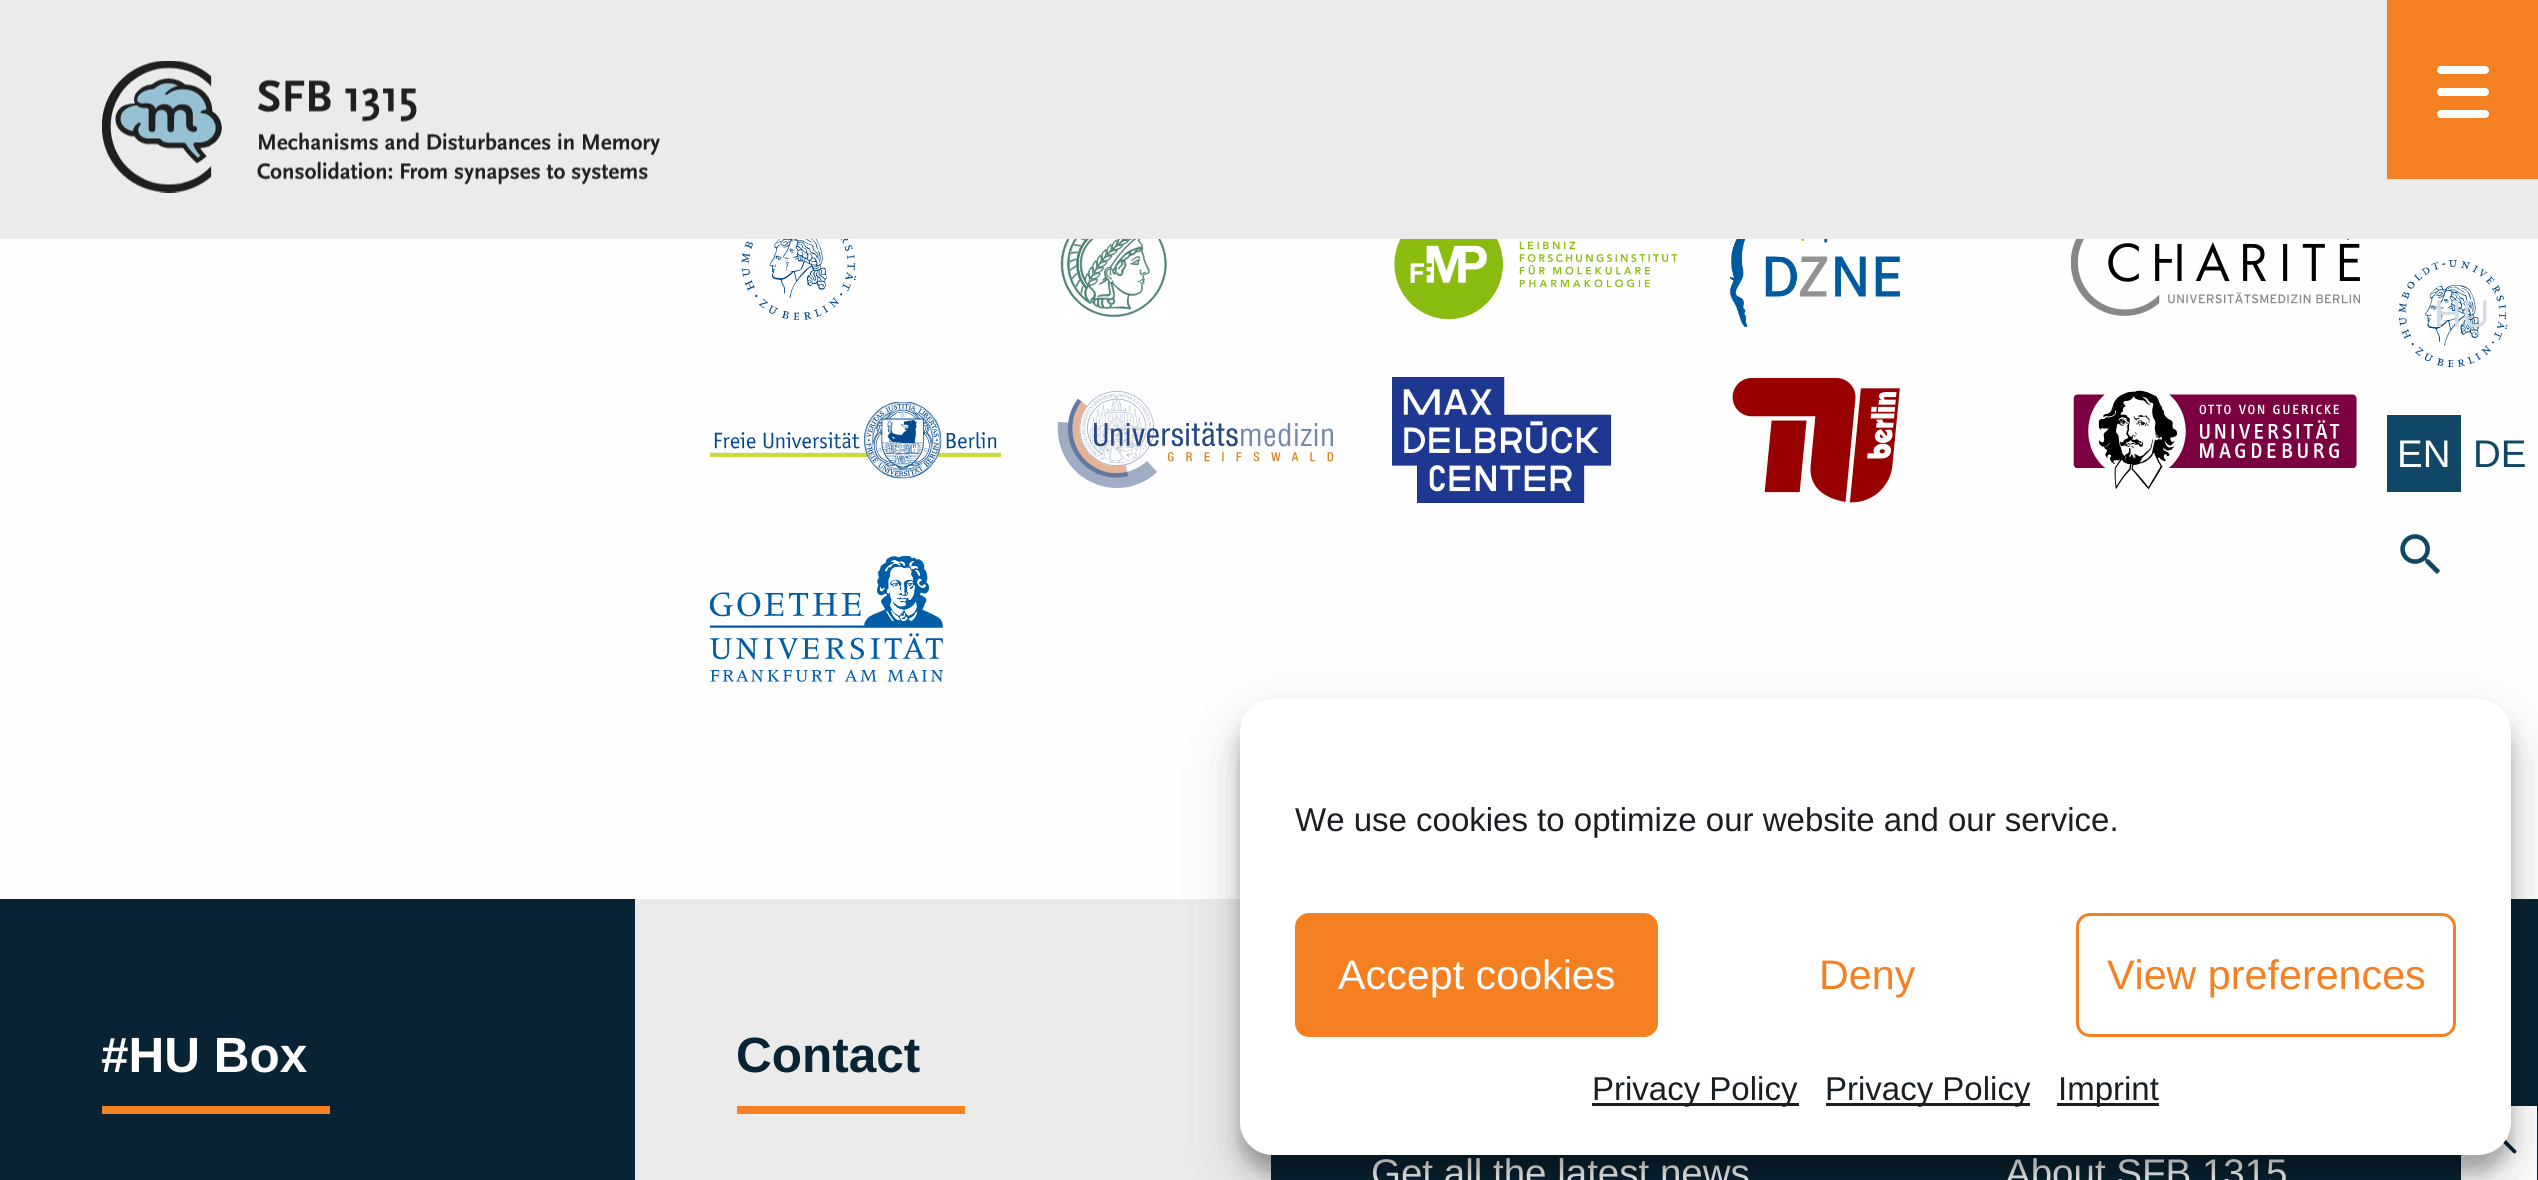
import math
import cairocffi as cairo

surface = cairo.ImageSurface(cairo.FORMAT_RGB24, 2538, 1180)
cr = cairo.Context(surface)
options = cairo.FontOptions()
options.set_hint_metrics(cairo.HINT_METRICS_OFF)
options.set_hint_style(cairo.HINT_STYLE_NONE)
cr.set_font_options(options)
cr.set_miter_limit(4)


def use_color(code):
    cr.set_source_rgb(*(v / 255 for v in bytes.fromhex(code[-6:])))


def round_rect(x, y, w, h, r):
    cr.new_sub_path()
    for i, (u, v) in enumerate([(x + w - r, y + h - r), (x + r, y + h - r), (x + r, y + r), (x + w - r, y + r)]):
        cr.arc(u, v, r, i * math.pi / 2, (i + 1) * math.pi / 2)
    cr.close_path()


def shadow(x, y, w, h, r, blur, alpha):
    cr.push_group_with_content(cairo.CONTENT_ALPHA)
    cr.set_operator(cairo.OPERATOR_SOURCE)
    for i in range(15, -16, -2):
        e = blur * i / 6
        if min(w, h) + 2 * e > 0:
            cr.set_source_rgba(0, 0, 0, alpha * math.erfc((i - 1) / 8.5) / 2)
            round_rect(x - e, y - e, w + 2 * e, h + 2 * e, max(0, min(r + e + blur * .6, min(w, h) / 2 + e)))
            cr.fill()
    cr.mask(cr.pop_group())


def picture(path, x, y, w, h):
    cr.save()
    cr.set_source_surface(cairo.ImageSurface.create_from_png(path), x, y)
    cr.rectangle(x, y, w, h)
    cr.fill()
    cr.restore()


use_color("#ebebeb")
cr.paint()
use_color("#f48021")
cr.rectangle(2387, 0, 151, 179)
cr.fill()
use_color("#ffffff")
round_rect(2437, 88, 52, 8, 4)
cr.fill()
round_rect(2437, 66, 52, 8, 4)
cr.fill()
round_rect(2437, 110, 52, 8, 4)
cr.fill()
use_color("#fefefe")
cr.rectangle(0, 239, 2538, 660)
cr.fill()
picture("img1.png", 741, 239, 116, 81)
picture("img2.png", 1060, 239, 107, 79)
picture("img3.png", 1394, 239, 284, 81)
picture("img4.png", 1730, 239, 170, 88)
picture("img5.png", 2071, 239, 289, 77)
picture("img6.png", 710, 402, 291, 77)
picture("img7.png", 1057, 391, 277, 97)
picture("img8.png", 1392, 377, 220, 126)
picture("img9.png", 1732, 378, 168, 125)
picture("img10.png", 2073, 390, 284, 100)
picture("img11.png", 710, 556, 233, 126)
picture("img12.png", 102, 61, 558, 132)
picture("img13.png", 2398, 260, 110, 107)
cr.select_font_face("Liberation Sans")
cr.set_font_size(38.5)
use_color("#d0dde8")
cr.move_to(2434, 327)
cr.show_text("HU")
use_color("#104766")
cr.rectangle(2387, 415, 74, 77)
cr.fill()
use_color("#fefefe")
cr.move_to(2397, 467)
cr.show_text("EN")
use_color("#104766")
cr.move_to(2473, 467)
cr.show_text("DE")
picture("img14.png", 2400, 534, 41, 40)
use_color("#082333")
cr.rectangle(0, 899, 635, 281)
cr.fill()
cr.select_font_face("Liberation Sans", cairo.FONT_SLANT_NORMAL, cairo.FONT_WEIGHT_BOLD)
cr.set_font_size(49.5)
use_color("#fefefe")
cr.move_to(101, 1072)
cr.show_text("#HU Box")
use_color("#f48021")
cr.rectangle(102, 1106, 228, 8)
cr.fill()
use_color("#082333")
cr.move_to(736, 1072)
cr.show_text("Contact")
use_color("#f48021")
cr.rectangle(737, 1106, 228, 8)
cr.fill()
use_color("#082333")
cr.rectangle(1271, 1154, 632, 26)
cr.fill()
cr.select_font_face("Liberation Sans")
cr.set_font_size(38.5)
use_color("#fefefe")
cr.move_to(1371, 1186)
cr.show_text("Get all the latest news")
use_color("#082333")
cr.rectangle(1903, 899, 635, 281)
cr.fill()
use_color("#fefefe")
cr.move_to(2005, 1186)
cr.show_text("About SFB 1315")
cr.rectangle(2461, 1106, 76, 74)
cr.fill()
cr.new_path()
cr.move_to(2514.5, 1151.5)
cr.line_to(2499.5, 1136.5)
cr.line_to(2484.5, 1151.5)
use_color("#082333")
cr.set_line_width(3.8)
cr.set_line_cap(cairo.LINE_CAP_ROUND)
cr.set_line_join(cairo.LINE_JOIN_ROUND)
cr.stroke()
use_color("#000000")
shadow(1240, 715, 1271, 457, 33, 8, 0.23)
shadow(1240, 726, 1271, 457, 33, 27.5, 0.19)
use_color("#ffffff")
round_rect(1240, 699, 1271, 456, 33)
cr.fill()
cr.set_font_size(33)
use_color("#191e23")
cr.move_to(1295, 831)
cr.show_text("We use cookies to optimize our website and our service.")
use_color("#f48021")
round_rect(1296.5, 914.5, 360, 121, 12.5)
cr.fill_preserve()
cr.set_line_width(3)
cr.set_line_cap(cairo.LINE_CAP_BUTT)
cr.set_line_join(cairo.LINE_JOIN_MITER)
cr.stroke()
cr.set_font_size(41.25)
use_color("#fefefe")
cr.move_to(1338, 989)
cr.show_text("Accept cookies")
use_color("#f48021")
cr.move_to(1819, 989)
cr.show_text("Deny")
round_rect(2077.5, 914.5, 377, 121, 12.5)
cr.stroke()
cr.move_to(2107, 989)
cr.show_text("View preferences")
use_color("#191e23")
cr.rectangle(1592, 1103, 207, 3)
cr.fill()
cr.set_font_size(33)
cr.move_to(1592, 1100)
cr.show_text("Privacy Policy")
cr.rectangle(1826, 1103, 204, 3)
cr.fill()
cr.move_to(1825, 1100)
cr.show_text("Privacy Policy")
cr.rectangle(2057, 1103, 102, 3)
cr.fill()
cr.move_to(2058, 1100)
cr.show_text("Imprint")
surface.write_to_png("result.png")
